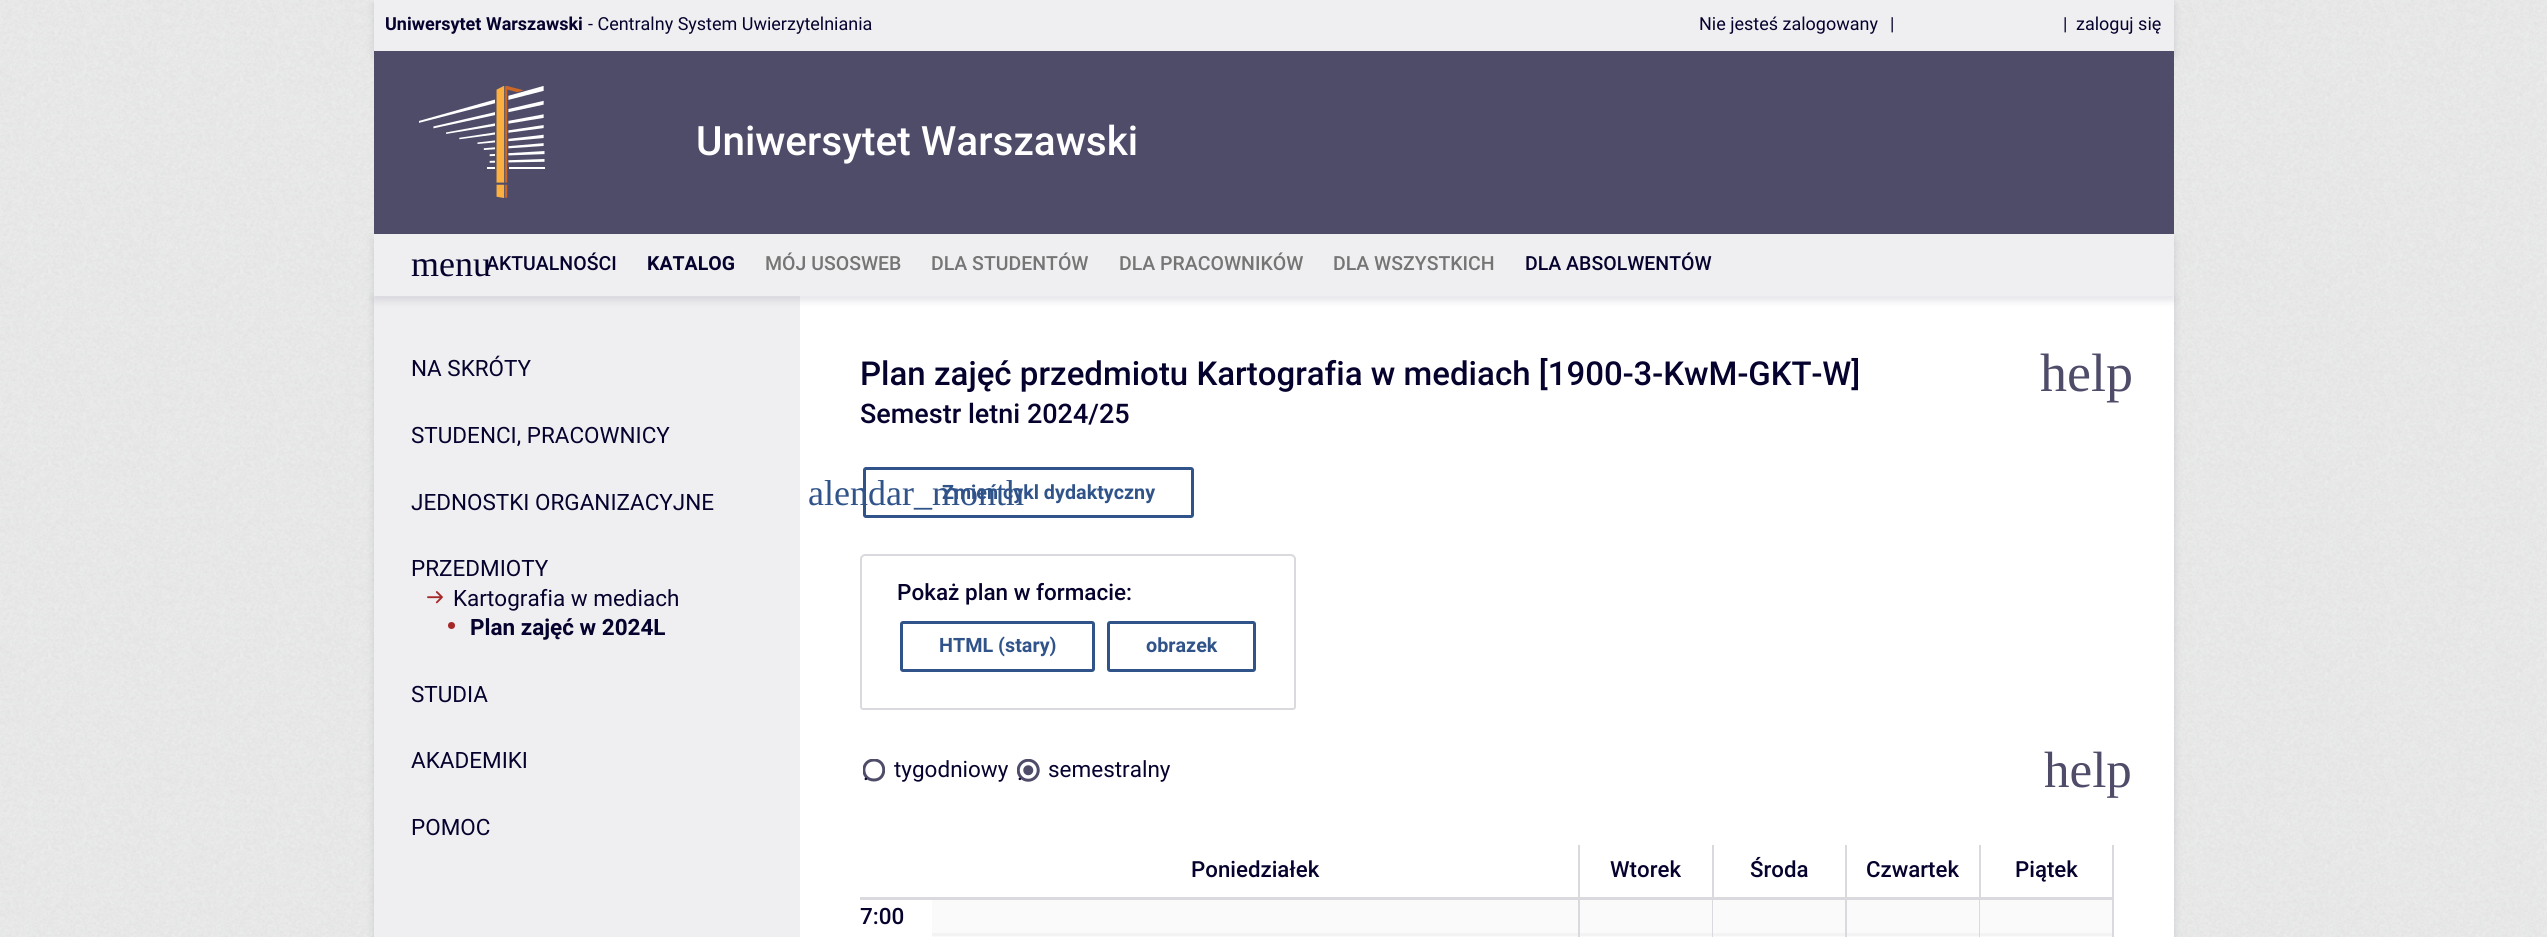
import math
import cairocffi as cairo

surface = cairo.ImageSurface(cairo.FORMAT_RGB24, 2547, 937)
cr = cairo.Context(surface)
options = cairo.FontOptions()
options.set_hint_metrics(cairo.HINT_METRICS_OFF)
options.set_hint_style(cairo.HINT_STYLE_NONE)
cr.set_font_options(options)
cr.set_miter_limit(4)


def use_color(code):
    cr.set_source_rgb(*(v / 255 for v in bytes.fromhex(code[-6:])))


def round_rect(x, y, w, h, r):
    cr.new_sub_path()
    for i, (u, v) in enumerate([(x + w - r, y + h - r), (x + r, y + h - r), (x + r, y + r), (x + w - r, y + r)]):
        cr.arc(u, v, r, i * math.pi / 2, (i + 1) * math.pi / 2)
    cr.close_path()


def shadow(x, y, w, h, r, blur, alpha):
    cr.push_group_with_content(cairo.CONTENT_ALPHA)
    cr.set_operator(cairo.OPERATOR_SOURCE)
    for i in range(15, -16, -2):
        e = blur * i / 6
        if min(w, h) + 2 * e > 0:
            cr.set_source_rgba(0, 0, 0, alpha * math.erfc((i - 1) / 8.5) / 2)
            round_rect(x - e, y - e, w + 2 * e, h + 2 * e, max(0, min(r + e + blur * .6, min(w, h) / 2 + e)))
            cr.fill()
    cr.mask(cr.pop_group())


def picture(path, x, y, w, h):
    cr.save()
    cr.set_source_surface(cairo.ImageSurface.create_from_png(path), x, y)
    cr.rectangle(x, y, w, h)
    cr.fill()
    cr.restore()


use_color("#ffffff")
cr.paint()
picture("img1.png", 0, 0, 2547, 937)
use_color("#060633")
shadow(374, 5, 1800, 51, 0, 4.5, 0.12)
use_color("#efeff1")
cr.rectangle(374, 0, 1800, 51)
cr.fill()
cr.select_font_face("Roboto", cairo.FONT_SLANT_NORMAL, cairo.FONT_WEIGHT_BOLD)
cr.set_font_size(18)
use_color("#06022e")
cr.move_to(385, 30)
cr.show_text("Uniwersytet Warszawski")
cr.select_font_face("Roboto")
cr.move_to(588, 30)
cr.show_text("- Centralny System Uwierzytelniania")
cr.move_to(1699, 30)
cr.show_text("Nie jesteś zalogowany")
cr.move_to(1890, 30)
cr.show_text("|")
cr.move_to(2063, 30)
cr.show_text("|")
cr.move_to(2076, 30)
cr.show_text("zaloguj się")
use_color("#4f4c6a")
cr.rectangle(374, 51, 1800, 183)
cr.fill()
picture("img2.png", 419, 86, 126, 112)
cr.select_font_face("Roboto Medium")
cr.set_font_size(40.5)
use_color("#ffffff")
cr.move_to(696, 155)
cr.show_text("Uniwersytet Warszawski")
use_color("#060633")
shadow(374, 300, 1800, 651, 0, 4.5, 0.12)
use_color("#ffffff")
cr.rectangle(800, 296, 1374, 641)
cr.fill()
use_color("#efeff1")
cr.rectangle(374, 296, 426, 641)
cr.fill()
use_color("#060633")
shadow(374, 239, 1800, 61, 0, 4.5, 0.12)
use_color("#efeff1")
cr.rectangle(374, 234, 1800, 62)
cr.fill()
cr.select_font_face("Liberation Serif")
cr.set_font_size(36)
use_color("#06022e")
cr.move_to(411, 276)
cr.show_text("menu")
cr.select_font_face("Roboto Medium")
cr.set_font_size(19.5)
cr.move_to(486, 270)
cr.show_text("AKTUALNOŚCI")
cr.select_font_face("Roboto", cairo.FONT_SLANT_NORMAL, cairo.FONT_WEIGHT_BOLD)
cr.move_to(647, 270)
cr.show_text("KATALOG")
cr.select_font_face("Roboto Medium")
use_color("#757575")
cr.move_to(765, 270)
cr.show_text("MÓJ USOSWEB")
cr.move_to(931, 270)
cr.show_text("DLA STUDENTÓW")
cr.move_to(1119, 270)
cr.show_text("DLA PRACOWNIKÓW")
cr.move_to(1333, 270)
cr.show_text("DLA WSZYSTKICH")
use_color("#06022e")
cr.move_to(1525, 270)
cr.show_text("DLA ABSOLWENTÓW")
cr.select_font_face("Roboto")
cr.set_font_size(22.5)
cr.move_to(411, 376)
cr.show_text("NA SKRÓTY")
cr.move_to(411, 443)
cr.show_text("STUDENCI, PRACOWNICY")
cr.move_to(411, 510)
cr.show_text("JEDNOSTKI ORGANIZACYJNE")
cr.move_to(411, 576)
cr.show_text("PRZEDMIOTY")
picture("img3.png", 427, 591, 16, 13)
cr.move_to(453, 606)
cr.show_text("Kartografia w mediach")
use_color("#a62929")
cr.new_path()
cr.arc(451.5, 625.5, 3.5, 0, 2 * math.pi)
cr.fill()
cr.select_font_face("Roboto", cairo.FONT_SLANT_NORMAL, cairo.FONT_WEIGHT_BOLD)
use_color("#06022e")
cr.move_to(470, 635)
cr.show_text("Plan zajęć w 2024L")
cr.select_font_face("Roboto")
cr.move_to(411, 702)
cr.show_text("STUDIA")
cr.move_to(411, 768)
cr.show_text("AKADEMIKI")
cr.move_to(411, 835)
cr.show_text("POMOC")
cr.select_font_face("Roboto Medium")
cr.set_font_size(33)
cr.move_to(860, 385)
cr.show_text("Plan zajęć przedmiotu Kartografia w mediach [1900-3-KwM-GKT-W]")
cr.set_font_size(27)
cr.move_to(860, 423)
cr.show_text("Semestr letni 2024/25")
cr.select_font_face("Liberation Serif")
cr.set_font_size(54)
use_color("#4f4c6a")
cr.move_to(2040, 391)
cr.show_text("help")
round_rect(864.5, 468.5, 328, 48, 1.5)
use_color("#30538a")
cr.set_line_width(3)
cr.stroke()
cr.set_font_size(36)
cr.move_to(808, 505)
cr.show_text("alendar_month")
cr.select_font_face("Roboto", cairo.FONT_SLANT_NORMAL, cairo.FONT_WEIGHT_BOLD)
cr.set_font_size(19.75)
cr.move_to(942, 499)
cr.show_text("Zmień cykl dydaktyczny")
cr.new_path()
cr.move_to(865, 555)
cr.line_to(1291, 555)
cr.curve_to(1293, 555, 1295, 557, 1295, 559)
cr.line_to(1295, 707)
cr.curve_to(1295, 708, 1294, 709, 1293, 709)
cr.line_to(863, 709)
cr.curve_to(862, 709, 861, 708, 861, 707)
cr.line_to(861, 559)
cr.curve_to(861, 557, 863, 555, 865, 555)
cr.close_path()
use_color("#dadade")
cr.set_line_width(2)
cr.stroke()
cr.select_font_face("Roboto Medium")
cr.set_font_size(22.5)
use_color("#06022e")
cr.move_to(897, 600)
cr.show_text("Pokaż plan w formacie:")
round_rect(901.5, 622.5, 192, 48, 1.5)
use_color("#30538a")
cr.set_line_width(3)
cr.stroke()
cr.select_font_face("Roboto", cairo.FONT_SLANT_NORMAL, cairo.FONT_WEIGHT_BOLD)
cr.set_font_size(19.75)
cr.move_to(939, 652)
cr.show_text("HTML (stary)")
round_rect(1108.5, 622.5, 146, 48, 1.5)
cr.stroke()
cr.move_to(1146, 652)
cr.show_text("obrazek")
cr.save()
cr.rectangle(863, 759, 22, 23)
cr.clip()
cr.new_path()
cr.move_to(874, 760)
cr.curve_to(887, 760, 887, 780, 874, 780)
cr.curve_to(860.5, 780, 860.5, 760, 874, 760)
cr.close_path()
use_color("#4f4c6a")
cr.set_line_cap(cairo.LINE_CAP_ROUND)
cr.stroke()
cr.restore()
cr.select_font_face("Roboto")
cr.set_font_size(22.5)
use_color("#06022e")
cr.move_to(863, 780)
cr.show_text(".")
cr.move_to(894, 777)
cr.show_text("tygodniowy")
picture("img4.png", 1017, 759, 23, 23)
cr.move_to(1017, 780)
cr.show_text(".")
cr.move_to(1048, 777)
cr.show_text("semestralny")
cr.select_font_face("Liberation Serif")
cr.set_font_size(51)
use_color("#4f4c6a")
cr.move_to(2044, 787)
cr.show_text("help")
use_color("#dadade")
cr.rectangle(1578, 845, 2, 92)
cr.fill()
cr.select_font_face("Roboto Medium")
cr.set_font_size(22.25)
use_color("#06022e")
cr.move_to(1191, 877)
cr.show_text("Poniedziałek")
use_color("#fafafa")
cr.rectangle(932, 900, 646, 37)
cr.fill()
use_color("#dadade")
cr.rectangle(1712, 845, 2, 92)
cr.fill()
use_color("#06022e")
cr.move_to(1610, 877)
cr.show_text("Wtorek")
use_color("#fafafa")
cr.rectangle(1580, 900, 132, 37)
cr.fill()
use_color("#dadade")
cr.rectangle(1845, 845, 2, 92)
cr.fill()
use_color("#06022e")
cr.move_to(1750, 877)
cr.show_text("Środa")
use_color("#fafafa")
cr.rectangle(1713, 900, 132, 37)
cr.fill()
use_color("#dadade")
cr.rectangle(1979, 845, 2, 92)
cr.fill()
use_color("#06022e")
cr.move_to(1866, 877)
cr.show_text("Czwartek")
use_color("#fafafa")
cr.rectangle(1847, 900, 132, 37)
cr.fill()
use_color("#dadade")
cr.rectangle(2112, 845, 2, 92)
cr.fill()
use_color("#06022e")
cr.move_to(2015, 877)
cr.show_text("Piątek")
use_color("#fafafa")
cr.rectangle(1980, 900, 132, 37)
cr.fill()
use_color("#dadade")
cr.rectangle(860, 897, 1254, 3)
cr.fill()
cr.set_font_size(22.5)
use_color("#06022e")
cr.move_to(860, 924)
cr.show_text("7:00")
cr.set_source_rgba(0.855, 0.855, 0.871, 0.2)
cr.rectangle(932, 933, 1182, 3)
cr.fill()
surface.write_to_png("result.png")
